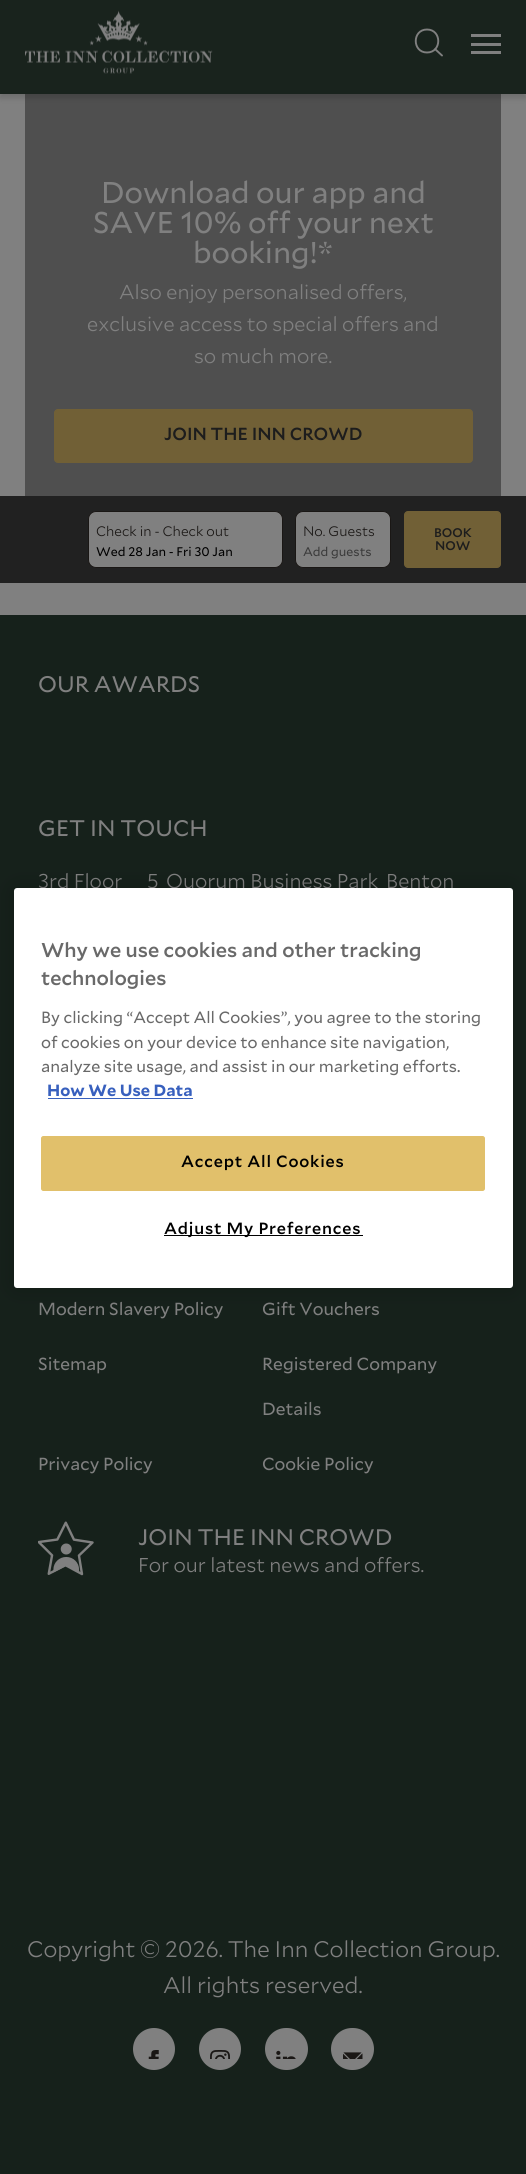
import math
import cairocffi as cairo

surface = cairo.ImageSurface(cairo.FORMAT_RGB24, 526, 2174)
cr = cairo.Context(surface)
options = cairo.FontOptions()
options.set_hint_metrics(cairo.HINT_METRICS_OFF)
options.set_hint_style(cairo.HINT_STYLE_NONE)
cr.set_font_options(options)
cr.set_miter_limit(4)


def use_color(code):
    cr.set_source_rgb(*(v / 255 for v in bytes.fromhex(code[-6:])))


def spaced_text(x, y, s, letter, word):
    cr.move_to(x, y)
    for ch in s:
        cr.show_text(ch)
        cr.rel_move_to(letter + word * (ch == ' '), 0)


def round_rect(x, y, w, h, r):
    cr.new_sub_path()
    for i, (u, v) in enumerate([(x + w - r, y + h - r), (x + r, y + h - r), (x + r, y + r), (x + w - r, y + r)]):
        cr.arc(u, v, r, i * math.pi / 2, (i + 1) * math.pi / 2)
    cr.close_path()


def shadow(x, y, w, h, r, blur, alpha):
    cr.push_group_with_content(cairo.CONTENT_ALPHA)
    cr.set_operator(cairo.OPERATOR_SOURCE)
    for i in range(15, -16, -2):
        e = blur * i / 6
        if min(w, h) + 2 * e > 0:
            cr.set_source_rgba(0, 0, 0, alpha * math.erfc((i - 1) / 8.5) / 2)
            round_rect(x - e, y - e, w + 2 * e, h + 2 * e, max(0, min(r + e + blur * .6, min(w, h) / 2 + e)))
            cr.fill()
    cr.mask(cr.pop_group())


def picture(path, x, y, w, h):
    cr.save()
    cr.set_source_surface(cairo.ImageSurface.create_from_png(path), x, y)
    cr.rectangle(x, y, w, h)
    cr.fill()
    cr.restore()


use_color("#808080")
cr.paint()
use_color("#4f4f4f")
cr.rectangle(25, 94, 476, 402)
cr.fill()
use_color("#000000")
shadow(0, 4, 526, 94, 0, 3, 0.15)
use_color("#19231d")
cr.rectangle(0, 0, 526, 94)
cr.fill()
picture("img1.png", 25, 10, 188, 64)
cr.new_path()
cr.move_to(427, 52.5)
cr.curve_to(442, 52.5, 442, 29.5, 427, 29.5)
cr.curve_to(412, 29.5, 412, 52.5, 427, 52.5)
cr.close_path()
cr.move_to(435, 49)
cr.line_to(442, 55.5)
use_color("#808080")
cr.set_line_width(1.9)
cr.set_line_cap(cairo.LINE_CAP_ROUND)
cr.set_line_join(cairo.LINE_JOIN_ROUND)
cr.stroke()
cr.rectangle(471, 34, 30, 3)
cr.fill()
cr.rectangle(471, 43, 30, 3)
cr.fill()
cr.rectangle(471, 51, 30, 3)
cr.fill()
cr.select_font_face("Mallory")
cr.set_font_size(30)
cr.move_to(101, 203)
cr.show_text("Download our app and")
cr.move_to(93, 233)
cr.show_text("SAVE 10% off your next")
cr.move_to(193, 263)
cr.show_text("booking!*")
cr.select_font_face("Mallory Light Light")
cr.set_font_size(20)
cr.move_to(119, 299)
cr.show_text("Also enjoy personalised offers,")
cr.move_to(87, 331)
cr.show_text("exclusive access to special offers and")
cr.move_to(194, 363)
cr.show_text("so much more.")
use_color("#716036")
round_rect(54.5, 409.5, 418, 53, 3.5)
cr.fill_preserve()
cr.set_line_width(1)
cr.set_line_cap(cairo.LINE_CAP_BUTT)
cr.set_line_join(cairo.LINE_JOIN_MITER)
cr.stroke()
cr.select_font_face("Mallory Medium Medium")
cr.set_font_size(17.5)
use_color("#1d1d1d")
cr.move_to(164, 440)
cr.show_text("JOIN THE INN CROWD")
use_color("#212121")
cr.rectangle(0, 496, 526, 87)
cr.fill()
use_color("#808080")
round_rect(88.5, 511.5, 194, 56, 7.5)
cr.fill_preserve()
use_color("#1a1715")
cr.stroke()
cr.select_font_face("Mallory Light Light")
cr.set_font_size(13.75)
cr.move_to(96, 536)
cr.show_text("Check in - Check out")
cr.select_font_face("Mallory")
cr.set_font_size(12.5)
use_color("#000000")
cr.move_to(96, 556)
cr.show_text("Wed 28 Jan - Fri 30 Jan")
use_color("#808080")
round_rect(295.5, 511.5, 95, 56, 7.5)
cr.fill_preserve()
use_color("#1a1715")
cr.stroke()
cr.select_font_face("Mallory Light Light")
cr.set_font_size(13.75)
cr.move_to(303, 536)
cr.show_text("No. Guests")
cr.select_font_face("Mallory")
cr.set_font_size(12.5)
use_color("#3b3b3b")
cr.move_to(303, 556)
cr.show_text("Add guests")
use_color("#716036")
round_rect(404.5, 511.5, 96, 56, 3.5)
cr.fill_preserve()
cr.stroke()
cr.select_font_face("Mallory Medium Medium")
use_color("#1d1d1d")
cr.move_to(434, 537)
cr.show_text("BOOK")
cr.move_to(435, 550)
cr.show_text("NOW")
use_color("#16211b")
cr.rectangle(0, 615, 526, 1559)
cr.fill()
cr.select_font_face("Mallory")
cr.set_font_size(22.5)
use_color("#808080")
cr.move_to(38, 692)
cr.show_text("OUR AWARDS")
cr.move_to(38, 836)
cr.show_text("GET IN TOUCH")
cr.select_font_face("Mallory Light Light")
cr.set_font_size(20)
cr.move_to(38, 888)
cr.show_text("3rd Floor")
cr.move_to(147, 888)
cr.show_text("5")
cr.move_to(166, 888)
cr.show_text("Quorum Business Park")
cr.move_to(386, 888)
cr.show_text("Benton")
cr.select_font_face("Mallory")
cr.set_font_size(17.5)
cr.move_to(38, 1315)
cr.show_text("Modern Slavery Policy")
cr.move_to(262, 1315)
cr.show_text("Gift Vouchers")
cr.move_to(38, 1370)
cr.show_text("Sitemap")
cr.move_to(262, 1370)
cr.show_text("Registered Company")
cr.move_to(262, 1415)
cr.show_text("Details")
cr.move_to(38, 1470)
cr.show_text("Privacy Policy")
cr.move_to(262, 1470)
cr.show_text("Cookie Policy")
picture("img2.png", 38, 1521, 56, 55)
cr.set_font_size(22.5)
cr.move_to(138, 1545)
cr.show_text("JOIN THE INN CROWD")
cr.select_font_face("Mallory Light Light")
cr.set_font_size(20)
cr.move_to(138, 1572)
cr.show_text("For our latest news and offers.")
cr.set_font_size(22.5)
cr.move_to(27, 1957)
cr.show_text("Copyright © 2026. The Inn Collection Group.")
cr.move_to(163, 1993)
cr.show_text("All rights reserved.")
cr.new_path()
cr.arc(154, 2049, 21, 0, 2 * math.pi)
cr.fill()
picture("img3.png", 148, 2050, 11, 9)
cr.arc(220, 2049, 21, 0, 2 * math.pi)
cr.fill()
picture("img4.png", 210, 2050, 20, 9)
round_rect(265, 2028, 43, 42, 21)
cr.fill()
picture("img5.png", 276, 2050, 20, 9)
round_rect(331, 2028, 43, 42, 21)
cr.fill()
picture("img6.png", 343, 2052, 20, 7)
use_color("#000000")
shadow(14, 888, 499, 400, 3, 11, 0.2)
use_color("#ffffff")
round_rect(14, 888, 499, 400, 3)
cr.fill()
cr.select_font_face("Mallory Medium Medium")
cr.set_font_size(20)
use_color("#696969")
cr.move_to(41, 957)
cr.show_text("Why we use cookies and other tracking")
cr.move_to(41, 985)
cr.show_text("technologies")
cr.select_font_face("Mallory")
cr.set_font_size(16.25)
cr.move_to(41, 1023)
cr.show_text("By clicking “Accept All Cookies”, you agree to the storing")
cr.move_to(41, 1048)
cr.show_text("of cookies on your device to enhance site navigation,")
cr.move_to(41, 1072)
cr.show_text("analyze site usage, and assist in our marketing efforts.")
cr.select_font_face("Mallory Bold", cairo.FONT_SLANT_NORMAL, cairo.FONT_WEIGHT_BOLD)
use_color("#3860be")
cr.move_to(47, 1096)
cr.show_text("How We Use Data")
cr.rectangle(48, 1098, 145, 1)
cr.fill()
use_color("#e1c06b")
round_rect(41.5, 1136.5, 443, 54, 2)
cr.fill_preserve()
cr.stroke()
cr.select_font_face("Mallory Medium Medium")
use_color("#000000")
spaced_text(181, 1167, "Accept All Cookies", 0.8, 0)
cr.rectangle(164, 1235, 199, 1)
cr.fill()
spaced_text(164, 1234, "Adjust My Preferences", 0.8, 0)
surface.write_to_png("result.png")
